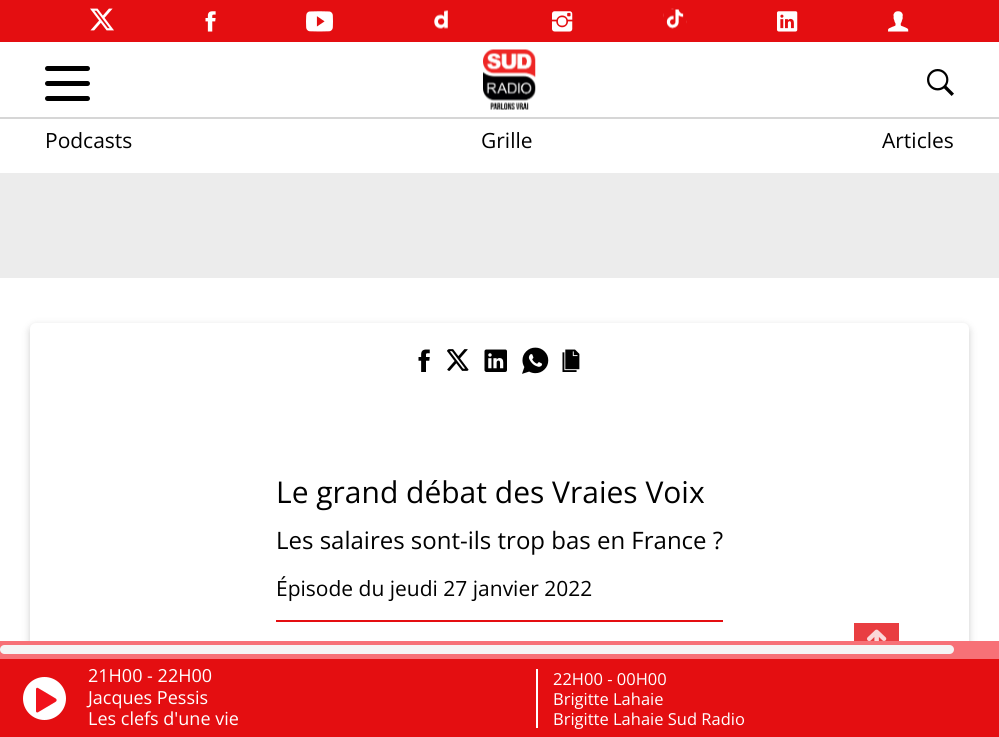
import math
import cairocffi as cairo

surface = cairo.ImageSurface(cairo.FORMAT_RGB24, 999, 737)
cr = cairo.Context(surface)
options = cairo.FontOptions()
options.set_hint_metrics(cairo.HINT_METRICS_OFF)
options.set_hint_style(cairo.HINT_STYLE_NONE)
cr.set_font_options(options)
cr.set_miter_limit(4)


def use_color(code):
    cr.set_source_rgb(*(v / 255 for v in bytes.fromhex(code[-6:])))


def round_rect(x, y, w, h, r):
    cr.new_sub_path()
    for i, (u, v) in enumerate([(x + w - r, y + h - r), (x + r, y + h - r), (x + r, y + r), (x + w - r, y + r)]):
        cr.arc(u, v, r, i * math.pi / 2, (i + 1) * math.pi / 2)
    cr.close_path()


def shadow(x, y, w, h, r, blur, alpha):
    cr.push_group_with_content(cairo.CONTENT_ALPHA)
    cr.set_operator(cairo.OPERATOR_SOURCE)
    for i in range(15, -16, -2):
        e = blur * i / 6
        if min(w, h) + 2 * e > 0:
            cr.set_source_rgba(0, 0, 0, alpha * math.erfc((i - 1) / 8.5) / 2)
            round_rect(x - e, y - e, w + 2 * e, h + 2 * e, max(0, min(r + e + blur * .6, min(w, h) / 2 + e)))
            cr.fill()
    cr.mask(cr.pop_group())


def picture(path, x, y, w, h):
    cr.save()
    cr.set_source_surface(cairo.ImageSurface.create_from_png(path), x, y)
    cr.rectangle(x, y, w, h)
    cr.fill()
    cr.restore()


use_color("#ececec")
cr.paint()
use_color("#e40e11")
cr.rectangle(0, 0, 999, 42)
cr.fill()
picture("img1.png", 90, 8, 24, 23)
picture("img2.png", 205, 11, 11, 21)
picture("img3.png", 306, 11, 27, 21)
picture("img4.png", 434, 10, 14, 19)
picture("img5.png", 552, 11, 21, 21)
picture("img6.png", 663, 8, 24, 21)
picture("img7.png", 777, 11, 21, 21)
picture("img8.png", 888, 11, 21, 21)
use_color("#ffffff")
cr.rectangle(0, 42, 999, 75)
cr.fill()
use_color("#000000")
round_rect(45, 66, 45, 5, 2.5)
cr.fill()
round_rect(45, 81, 45, 5, 2.5)
cr.fill()
round_rect(45, 96, 45, 5, 2.5)
cr.fill()
picture("img9.png", 483, 49, 53, 61)
picture("img10.png", 927, 69, 27, 27)
use_color("#ffffff")
cr.rectangle(0, 119, 999, 54)
cr.fill()
use_color("#d6d6d6")
cr.rectangle(0, 117, 999, 2)
cr.fill()
cr.select_font_face("Open Sans")
cr.set_font_size(21)
use_color("#000000")
cr.move_to(45, 148)
cr.show_text("Podcasts")
cr.move_to(481, 148)
cr.show_text("Grille")
cr.move_to(882, 148)
cr.show_text("Articles")
use_color("#ffffff")
cr.rectangle(0, 278, 999, 363)
cr.fill()
use_color("#000000")
shadow(30, 326, 939, 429, 6, 4, 0.2)
use_color("#ffffff")
round_rect(30, 323, 939, 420, 6)
cr.fill()
picture("img11.png", 418, 349, 12, 23)
picture("img12.png", 447, 349, 22, 22)
picture("img13.png", 484, 349, 23, 23)
picture("img14.png", 522, 347, 27, 27)
picture("img15.png", 562, 349, 18, 23)
cr.set_font_size(30)
use_color("#000000")
cr.move_to(276, 503)
cr.show_text("Le grand débat des Vraies Voix")
cr.set_font_size(24)
cr.move_to(276, 549)
cr.show_text("Les salaires sont-ils trop bas en France ?")
cr.set_font_size(21)
cr.move_to(276, 596)
cr.show_text("Épisode du jeudi 27 janvier 2022")
use_color("#e40e11")
cr.rectangle(276, 620, 447, 2)
cr.fill()
use_color("#e93e41")
cr.rectangle(854, 623, 45, 18)
cr.fill()
picture("img16.png", 867, 629, 20, 12)
use_color("#e40e11")
cr.rectangle(0, 659, 999, 78)
cr.fill()
use_color("#f77177")
cr.rectangle(0, 641, 999, 18)
cr.fill()
use_color("#f5f5f5")
round_rect(0, 645, 954, 9, 4.5)
cr.fill()
use_color("#ffffff")
cr.arc(44.5, 698.5, 21.5, 0, 2 * math.pi)
cr.fill()
picture("img17.png", 36, 687, 21, 26)
cr.set_font_size(18)
cr.move_to(88, 682)
cr.show_text("21H00 - 22H00")
cr.move_to(88, 704)
cr.show_text("Jacques Pessis")
cr.move_to(88, 725)
cr.show_text("Les clefs d'une vie")
cr.rectangle(536, 669, 2, 59)
cr.fill()
cr.set_font_size(16.5)
cr.move_to(553, 685)
cr.show_text("22H00 - 00H00")
cr.move_to(553, 705)
cr.show_text("Brigitte Lahaie")
cr.move_to(553, 725)
cr.show_text("Brigitte Lahaie Sud Radio")
surface.write_to_png("result.png")
